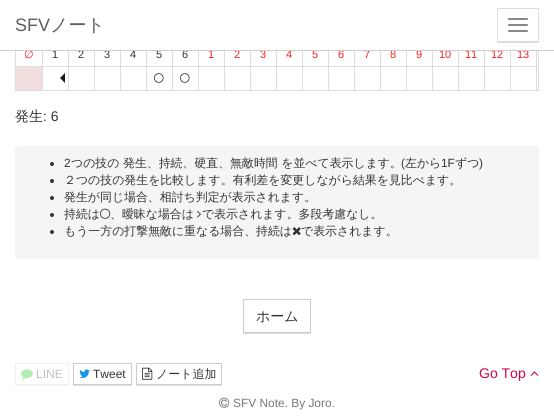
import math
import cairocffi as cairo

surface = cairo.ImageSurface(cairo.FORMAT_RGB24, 554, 417)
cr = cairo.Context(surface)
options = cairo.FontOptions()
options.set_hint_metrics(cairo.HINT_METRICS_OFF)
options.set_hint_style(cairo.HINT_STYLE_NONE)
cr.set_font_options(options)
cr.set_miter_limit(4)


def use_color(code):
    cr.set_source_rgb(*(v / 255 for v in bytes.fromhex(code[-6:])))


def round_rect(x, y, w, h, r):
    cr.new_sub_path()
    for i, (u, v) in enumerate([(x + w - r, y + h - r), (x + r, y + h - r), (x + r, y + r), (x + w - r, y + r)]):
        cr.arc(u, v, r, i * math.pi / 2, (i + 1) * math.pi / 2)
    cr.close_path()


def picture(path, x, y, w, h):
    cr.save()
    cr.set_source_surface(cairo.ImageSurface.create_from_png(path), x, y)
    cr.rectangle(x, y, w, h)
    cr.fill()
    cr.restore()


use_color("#ffffff")
cr.paint()
cr.rectangle(15.5, 41.5, 523, 49)
use_color("#dddddd")
cr.set_line_width(1)
cr.stroke()
use_color("#ffffff")
cr.rectangle(15, 41, 524, 9)
cr.fill()
cr.select_font_face("DejaVu Sans")
cr.set_font_size(11)
use_color("#ff1e1e")
cr.move_to(24, 58)
cr.show_text("∅")
cr.select_font_face("Liberation Sans")
use_color("#333333")
cr.move_to(52, 58)
cr.show_text("1")
cr.move_to(78, 58)
cr.show_text("2")
cr.move_to(104, 58)
cr.show_text("3")
cr.move_to(130, 58)
cr.show_text("4")
cr.move_to(156, 58)
cr.show_text("5")
cr.move_to(182, 58)
cr.show_text("6")
use_color("#ff1e1e")
cr.move_to(208, 58)
cr.show_text("1")
cr.move_to(234, 58)
cr.show_text("2")
cr.move_to(260, 58)
cr.show_text("3")
cr.move_to(286, 58)
cr.show_text("4")
cr.move_to(312, 58)
cr.show_text("5")
cr.move_to(338, 58)
cr.show_text("6")
cr.move_to(364, 58)
cr.show_text("7")
cr.move_to(390, 58)
cr.show_text("8")
cr.move_to(416, 58)
cr.show_text("9")
cr.move_to(439, 58)
cr.show_text("10")
cr.move_to(465, 58)
cr.show_text("11")
cr.move_to(491, 58)
cr.show_text("12")
cr.move_to(517, 58)
cr.show_text("13")
use_color("#cccccc")
cr.rectangle(0, 50, 554, 1)
cr.fill()
cr.set_font_size(18)
use_color("#5e5e5e")
cr.move_to(15, 31)
cr.show_text("SFV")
cr.select_font_face("WenQuanYi Zen Hei Medium")
cr.move_to(50, 31)
cr.show_text("ノート")
use_color("#dddddd")
cr.rectangle(497, 42, 42, 1)
cr.fill()
cr.rectangle(497.5, 8.5, 41, 33)
cr.stroke()
use_color("#888888")
round_rect(508, 18, 20, 2, 1)
cr.fill()
round_rect(508, 24, 20, 2, 1)
cr.fill()
round_rect(508, 30, 20, 2, 1)
cr.fill()
use_color("#dddddd")
cr.rectangle(536, 66, 2, 1)
cr.fill()
cr.rectangle(536, 66, 1, 24)
cr.fill()
cr.rectangle(510, 66, 27, 1)
cr.fill()
cr.rectangle(510, 66, 1, 24)
cr.fill()
cr.rectangle(484, 66, 27, 1)
cr.fill()
cr.rectangle(484, 66, 1, 24)
cr.fill()
cr.rectangle(458, 66, 27, 1)
cr.fill()
cr.rectangle(458, 66, 1, 24)
cr.fill()
cr.rectangle(432, 66, 27, 1)
cr.fill()
cr.rectangle(432, 66, 1, 24)
cr.fill()
cr.rectangle(406, 66, 27, 1)
cr.fill()
cr.rectangle(406, 66, 1, 24)
cr.fill()
cr.rectangle(380, 66, 27, 1)
cr.fill()
cr.rectangle(380, 66, 1, 24)
cr.fill()
cr.rectangle(354, 66, 27, 1)
cr.fill()
cr.rectangle(354, 66, 1, 24)
cr.fill()
cr.rectangle(328, 66, 27, 1)
cr.fill()
cr.rectangle(328, 66, 1, 24)
cr.fill()
cr.rectangle(302, 66, 27, 1)
cr.fill()
cr.rectangle(302, 66, 1, 24)
cr.fill()
cr.rectangle(276, 66, 27, 1)
cr.fill()
cr.rectangle(276, 66, 1, 24)
cr.fill()
cr.rectangle(250, 66, 27, 1)
cr.fill()
cr.rectangle(250, 66, 1, 24)
cr.fill()
cr.rectangle(224, 66, 27, 1)
cr.fill()
cr.rectangle(224, 66, 1, 24)
cr.fill()
cr.rectangle(198, 66, 27, 1)
cr.fill()
cr.rectangle(198, 66, 1, 24)
cr.fill()
cr.rectangle(172, 66, 27, 1)
cr.fill()
cr.rectangle(172, 66, 1, 24)
cr.fill()
cr.rectangle(146, 66, 27, 1)
cr.fill()
cr.rectangle(146, 66, 1, 24)
cr.fill()
cr.rectangle(120, 66, 27, 1)
cr.fill()
cr.rectangle(120, 66, 1, 24)
cr.fill()
cr.rectangle(94, 66, 27, 1)
cr.fill()
cr.rectangle(94, 66, 1, 24)
cr.fill()
cr.rectangle(68, 66, 27, 1)
cr.fill()
cr.rectangle(68, 66, 1, 24)
cr.fill()
cr.rectangle(42, 66, 27, 1)
cr.fill()
cr.rectangle(42, 66, 1, 24)
cr.fill()
cr.rectangle(16, 66, 27, 1)
cr.fill()
cr.rectangle(42, 51, 1, 16)
cr.fill()
cr.rectangle(68, 51, 1, 16)
cr.fill()
cr.rectangle(94, 51, 1, 16)
cr.fill()
cr.rectangle(120, 51, 1, 16)
cr.fill()
cr.rectangle(146, 51, 1, 16)
cr.fill()
cr.rectangle(172, 51, 1, 16)
cr.fill()
cr.rectangle(198, 51, 1, 16)
cr.fill()
cr.rectangle(224, 51, 1, 16)
cr.fill()
cr.rectangle(250, 51, 1, 16)
cr.fill()
cr.rectangle(276, 51, 1, 16)
cr.fill()
cr.rectangle(302, 51, 1, 16)
cr.fill()
cr.rectangle(328, 51, 1, 16)
cr.fill()
cr.rectangle(354, 51, 1, 16)
cr.fill()
cr.rectangle(380, 51, 1, 16)
cr.fill()
cr.rectangle(406, 51, 1, 16)
cr.fill()
cr.rectangle(432, 51, 1, 16)
cr.fill()
cr.rectangle(458, 51, 1, 16)
cr.fill()
cr.rectangle(484, 51, 1, 16)
cr.fill()
cr.rectangle(510, 51, 1, 16)
cr.fill()
cr.rectangle(536, 51, 1, 16)
cr.fill()
use_color("#f2dede")
cr.rectangle(16, 67, 26, 23)
cr.fill()
picture("img1.png", 154, 73, 10, 10)
picture("img1.png", 180, 73, 10, 10)
use_color("#1a1a1a")
cr.new_path()
cr.move_to(65, 73)
cr.line_to(65, 83)
cr.line_to(60, 78)
cr.close_path()
cr.fill()
cr.set_font_size(14)
use_color("#333333")
cr.move_to(15, 121)
cr.show_text("発生")
cr.select_font_face("Liberation Sans")
cr.move_to(43, 121)
cr.show_text(": 6")
use_color("#f5f5f5")
round_rect(15, 146, 524, 113, 2)
cr.fill()
use_color("#333333")
cr.arc(52, 164, 2, 0, 2 * math.pi)
cr.fill()
cr.set_font_size(11.9)
cr.move_to(64, 167)
cr.show_text("2")
cr.select_font_face("WenQuanYi Zen Hei Medium")
cr.move_to(71, 167)
cr.show_text("つの技の 発生、持続、硬直、無敵時間 を並べて表示します。")
cr.select_font_face("Liberation Sans")
cr.move_to(401, 167)
cr.show_text("(")
cr.select_font_face("WenQuanYi Zen Hei Medium")
cr.move_to(405, 167)
cr.show_text("左から")
cr.select_font_face("Liberation Sans")
cr.move_to(441, 167)
cr.show_text("1F")
cr.select_font_face("WenQuanYi Zen Hei Medium")
cr.move_to(455, 167)
cr.show_text("ずつ")
cr.select_font_face("Liberation Sans")
cr.move_to(479, 167)
cr.show_text(")")
cr.new_path()
cr.arc(52, 181, 2, 0, 2 * math.pi)
cr.fill()
cr.select_font_face("WenQuanYi Zen Hei Medium")
cr.move_to(64, 184)
cr.show_text("２つの技の発生を比較します。有利差を変更しながら結果を見比べます。")
cr.new_path()
cr.arc(52, 198, 2, 0, 2 * math.pi)
cr.fill()
cr.move_to(64, 201)
cr.show_text("発生が同じ場合、相討ち判定が表示されます。")
cr.new_path()
cr.arc(52, 215, 2, 0, 2 * math.pi)
cr.fill()
cr.move_to(64, 218)
cr.show_text("持続は")
picture("img2.png", 100, 208, 11, 11)
cr.move_to(110, 218)
cr.show_text("、曖昧な場合は")
picture("img3.png", 197, 210, 4, 8)
cr.move_to(202, 218)
cr.show_text("で表示されます。多段考慮なし。")
cr.new_path()
cr.arc(52, 232, 2, 0, 2 * math.pi)
cr.fill()
cr.move_to(64, 235)
cr.show_text("もう一方の打撃無敵に重なる場合、持続は")
picture("img4.png", 292, 227, 9, 9)
cr.move_to(301, 235)
cr.show_text("で表示されます。")
use_color("#dddddd")
cr.rectangle(243, 333, 68, 1)
cr.fill()
cr.rectangle(243.5, 299.5, 67, 33)
use_color("#cccccc")
cr.stroke()
cr.set_font_size(14)
use_color("#333333")
cr.move_to(256, 321)
cr.show_text("ホーム")
use_color("#f5f5f5")
cr.rectangle(15, 385, 54, 1)
cr.fill()
cr.rectangle(15.5, 363.5, 53, 21)
use_color("#f0f0f0")
cr.stroke()
picture("img5.png", 21, 369, 12, 11)
cr.select_font_face("Liberation Sans")
cr.set_font_size(12)
use_color("#c2c2c2")
cr.move_to(36, 378)
cr.show_text("LINE")
use_color("#dddddd")
cr.rectangle(73, 385, 59, 1)
cr.fill()
cr.rectangle(73.5, 363.5, 58, 21)
use_color("#cccccc")
cr.stroke()
picture("img6.png", 79, 369, 11, 9)
use_color("#333333")
cr.move_to(93, 378)
cr.show_text("Tweet")
use_color("#dddddd")
cr.rectangle(136, 385, 86, 1)
cr.fill()
cr.rectangle(136.5, 363.5, 85, 21)
use_color("#cccccc")
cr.stroke()
picture("img7.png", 142, 367, 11, 13)
cr.select_font_face("WenQuanYi Zen Hei Medium")
use_color("#333333")
cr.move_to(156, 378)
cr.show_text("ノート追加")
cr.select_font_face("Liberation Sans")
cr.set_font_size(14)
use_color("#d4004b")
cr.move_to(479, 378)
cr.show_text("Go Top")
picture("img8.png", 530, 371, 9, 5)
picture("img9.png", 219, 397, 11, 11)
cr.set_font_size(11.9)
use_color("#777777")
cr.move_to(233, 407)
cr.show_text("SFV Note. By Joro.")
surface.write_to_png("result.png")
